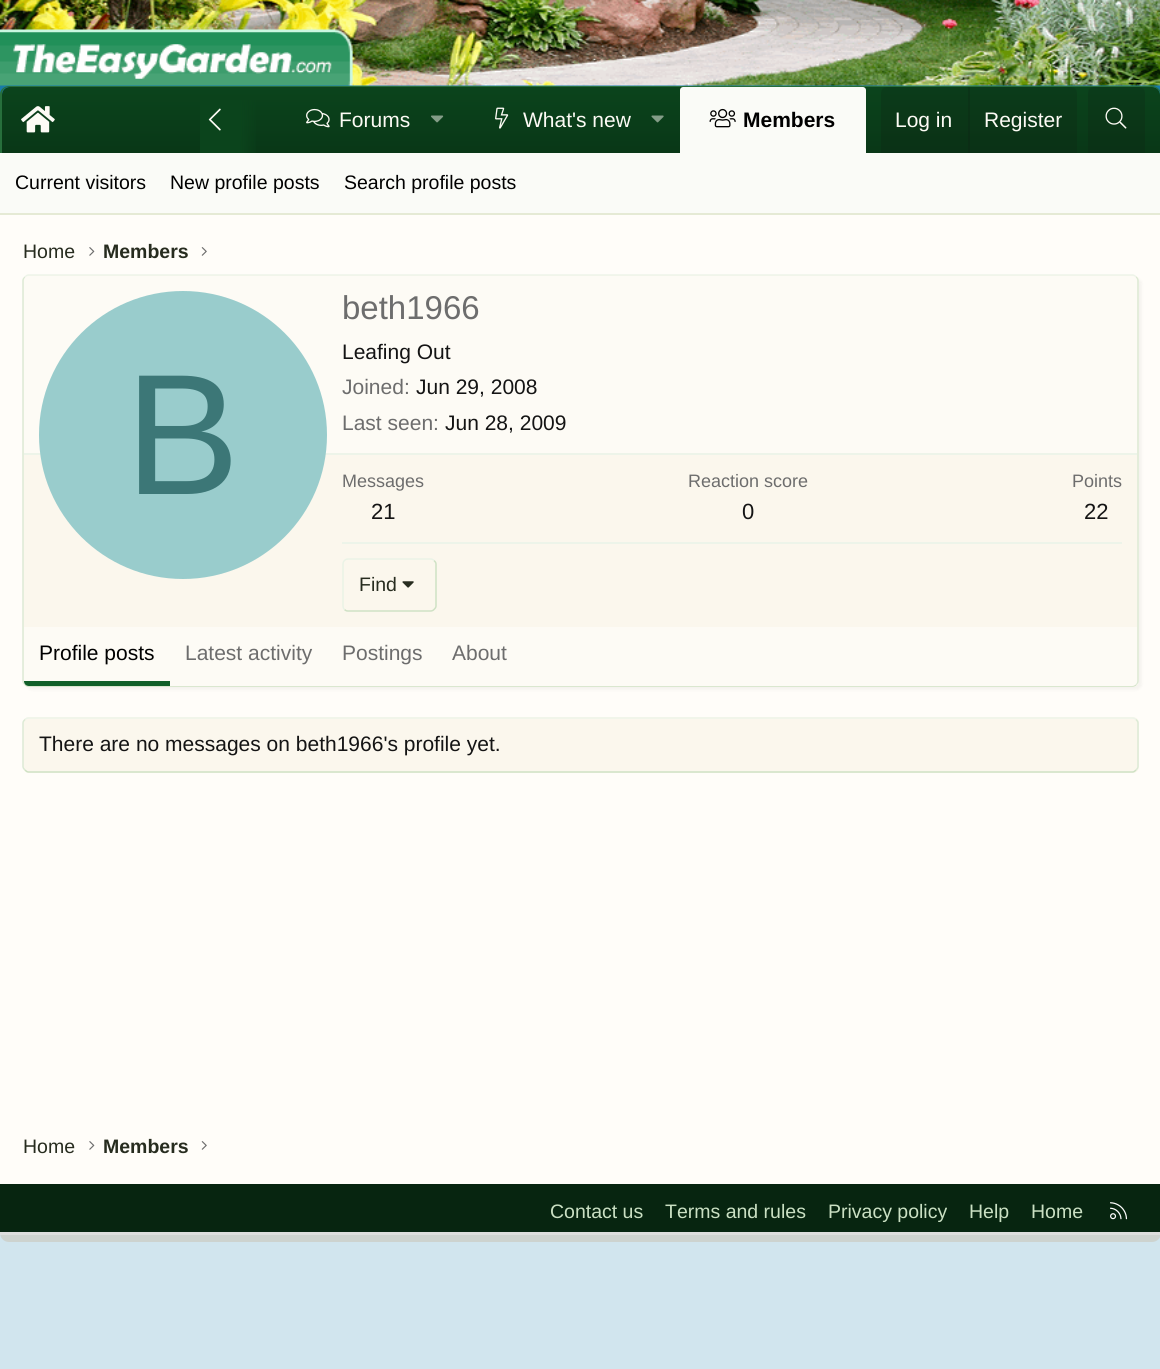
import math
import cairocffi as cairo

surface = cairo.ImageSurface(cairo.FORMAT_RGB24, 1160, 1369)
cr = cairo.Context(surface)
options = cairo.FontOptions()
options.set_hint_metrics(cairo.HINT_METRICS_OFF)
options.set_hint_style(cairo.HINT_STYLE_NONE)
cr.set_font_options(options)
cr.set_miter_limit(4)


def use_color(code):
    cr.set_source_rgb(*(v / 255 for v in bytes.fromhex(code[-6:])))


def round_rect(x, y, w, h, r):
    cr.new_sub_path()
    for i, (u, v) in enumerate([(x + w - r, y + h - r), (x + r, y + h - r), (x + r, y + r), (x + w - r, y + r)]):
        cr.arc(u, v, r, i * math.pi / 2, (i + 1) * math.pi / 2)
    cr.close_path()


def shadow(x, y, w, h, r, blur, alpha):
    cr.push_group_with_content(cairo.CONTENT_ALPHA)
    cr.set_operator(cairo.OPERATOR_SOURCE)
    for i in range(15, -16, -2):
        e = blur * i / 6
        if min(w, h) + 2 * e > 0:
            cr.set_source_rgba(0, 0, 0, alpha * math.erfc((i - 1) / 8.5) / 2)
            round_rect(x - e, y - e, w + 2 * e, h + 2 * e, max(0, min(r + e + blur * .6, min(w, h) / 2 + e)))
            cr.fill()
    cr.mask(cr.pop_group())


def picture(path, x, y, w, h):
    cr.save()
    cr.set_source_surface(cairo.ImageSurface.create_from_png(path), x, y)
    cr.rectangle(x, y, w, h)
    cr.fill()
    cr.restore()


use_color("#177baa")
cr.paint()
picture("img1.png", 0, 0, 1160, 86)
gradient = cairo.LinearGradient(581, 87, 581, 153)
gradient.add_color_stop_rgba(0, 0.043, 0.267, 0.11, 1)
gradient.add_color_stop_rgba(1, 0.035, 0.216, 0.09, 1)
cr.set_source(gradient)
cr.new_path()
cr.move_to(10, 87)
cr.line_to(1152, 87)
cr.curve_to(1156.5, 87, 1160, 90.5, 1160, 95)
cr.line_to(1160, 153)
cr.line_to(2, 153)
cr.line_to(2, 95)
cr.curve_to(2, 90.5, 5.5, 87, 10, 87)
cr.close_path()
cr.fill()
use_color("#276f3c")
cr.set_fill_rule(cairo.FILL_RULE_EVEN_ODD)
cr.new_path()
cr.move_to(9, 86)
cr.line_to(1152, 86)
cr.curve_to(1157, 86, 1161, 90, 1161, 94)
cr.line_to(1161, 153)
cr.line_to(0, 153)
cr.line_to(0, 94)
cr.curve_to(0, 90, 4, 86, 9, 86)
cr.close_path()
cr.move_to(9, 87)
cr.line_to(1152, 87)
cr.curve_to(1156, 87, 1160, 90, 1160, 94)
cr.line_to(1160, 153)
cr.line_to(2, 153)
cr.line_to(2, 94)
cr.curve_to(2, 90, 5, 87, 9, 87)
cr.close_path()
cr.fill()
picture("img2.png", 21, 106, 34, 27)
gradient = cairo.LinearGradient(200, 120, 260, 120)
gradient.add_color_stop_rgba(0.66, 0.043, 0.267, 0.11, 1)
gradient.add_color_stop_rgba(1, 0.043, 0.267, 0.11, 0)
cr.set_source(gradient)
cr.rectangle(200, 100, 56, 53)
cr.fill()
picture("img3.png", 208, 108, 13, 23)
picture("img4.png", 306, 108, 24, 20)
cr.select_font_face("Liberation Sans")
cr.set_font_size(21)
use_color("#fdfbf5")
cr.move_to(339, 127)
cr.show_text("Forums")
picture("img5.png", 431, 115, 13, 8)
picture("img6.png", 495, 107, 14, 22)
cr.move_to(523, 127)
cr.show_text("What's new")
picture("img7.png", 651, 115, 13, 8)
use_color("#fafbf7")
cr.new_path()
cr.move_to(683, 87)
cr.line_to(863, 87)
cr.curve_to(864.5, 87, 866, 88.5, 866, 90)
cr.line_to(866, 153)
cr.line_to(680, 153)
cr.line_to(680, 90)
cr.curve_to(680, 88.5, 681.5, 87, 683, 87)
cr.close_path()
cr.fill()
picture("img8.png", 709, 108, 27, 20)
cr.select_font_face("Liberation Sans", cairo.FONT_SLANT_NORMAL, cairo.FONT_WEIGHT_BOLD)
use_color("#000000")
cr.move_to(743, 127)
cr.show_text("Members")
cr.set_source_rgba(0.078, 0.078, 0.078, 0.15)
cr.new_path()
cr.move_to(887, 87)
cr.line_to(1071, 87)
cr.curve_to(1074.5, 87, 1077, 89.5, 1077, 93)
cr.line_to(1077, 153)
cr.line_to(881, 153)
cr.line_to(881, 93)
cr.curve_to(881, 89.5, 883.5, 87, 887, 87)
cr.close_path()
cr.fill()
cr.select_font_face("Liberation Sans")
use_color("#fdfbf5")
cr.move_to(895, 127)
cr.show_text("Log in")
cr.set_source_rgba(0.078, 0.078, 0.078, 0.15)
cr.rectangle(968, 87, 2, 66)
cr.fill()
use_color("#fdfbf5")
cr.move_to(984, 127)
cr.show_text("Register")
cr.set_source_rgba(0.078, 0.078, 0.078, 0.15)
cr.new_path()
cr.move_to(1094, 87)
cr.line_to(1139, 87)
cr.curve_to(1142.5, 87, 1145, 89.5, 1145, 93)
cr.line_to(1145, 153)
cr.line_to(1088, 153)
cr.line_to(1088, 93)
cr.curve_to(1088, 89.5, 1090.5, 87, 1094, 87)
cr.close_path()
cr.fill()
picture("img9.png", 1105, 107, 22, 22)
use_color("#fafbf7")
cr.rectangle(0, 153, 1160, 60)
cr.fill()
use_color("#e5ead5")
cr.rectangle(0, 213, 1160, 2)
cr.fill()
cr.set_font_size(19.5)
use_color("#000000")
cr.move_to(15, 189)
cr.show_text("Current visitors")
cr.move_to(170, 189)
cr.show_text("New profile posts")
cr.move_to(344, 189)
cr.show_text("Search profile posts")
use_color("#fffdf9")
cr.rectangle(0, 215, 1160, 969)
cr.fill()
use_color("#272c1f")
cr.move_to(23, 258)
cr.show_text("Home")
picture("img10.png", 89, 247, 6, 9)
cr.select_font_face("Liberation Sans", cairo.FONT_SLANT_NORMAL, cairo.FONT_WEIGHT_BOLD)
cr.move_to(103, 258)
cr.show_text("Members")
picture("img11.png", 201, 247, 6, 9)
use_color("#000000")
shadow(26, 278, 1116, 412, 6, 1.5, 0.04)
use_color("#fbf7ed")
round_rect(23, 275, 1116, 412, 6)
cr.fill()
cr.new_path()
cr.move_to(25, 277)
cr.curve_to(26, 276, 27, 275, 28.5, 275)
cr.line_to(1132.5, 275)
cr.curve_to(1134, 275, 1135, 276, 1136, 277)
use_color("#edf4e9")
cr.set_line_width(1.5)
cr.stroke()
cr.new_path()
cr.move_to(1136, 277)
cr.curve_to(1137, 278, 1138, 279, 1138, 280.5)
cr.line_to(1138, 681)
cr.curve_to(1138, 682.5, 1137, 683.5, 1136, 684.5)
use_color("#dcead5")
cr.stroke()
cr.new_path()
cr.move_to(1136, 684.5)
cr.curve_to(1135, 685.5, 1134, 686, 1132.5, 686)
cr.line_to(28.5, 686)
cr.curve_to(27, 686, 26, 685.5, 25, 684.5)
use_color("#cee1c4")
cr.stroke()
cr.new_path()
cr.move_to(25, 684.5)
cr.curve_to(24, 683.5, 23, 682.5, 23, 681)
cr.line_to(23, 280.5)
cr.curve_to(23, 279, 24, 278, 25, 277)
use_color("#dcead5")
cr.stroke()
use_color("#fdfbf5")
cr.new_path()
cr.move_to(29, 276)
cr.line_to(1132, 276)
cr.curve_to(1135, 276, 1137, 278, 1137, 281)
cr.line_to(1137, 455)
cr.line_to(24, 455)
cr.line_to(24, 281)
cr.curve_to(24, 278, 26, 276, 29, 276)
cr.close_path()
cr.fill()
use_color("#edf4e9")
cr.rectangle(24, 453, 1113, 2)
cr.fill()
use_color("#99cccc")
cr.arc(183, 435, 144, 0, 2 * math.pi)
cr.fill()
cr.select_font_face("Liberation Sans")
cr.set_font_size(172)
use_color("#3c7777")
cr.move_to(125, 494)
cr.show_text("B")
cr.set_font_size(33)
use_color("#6d6d6d")
cr.move_to(342, 319)
cr.show_text("beth1966")
cr.set_font_size(21)
use_color("#141414")
cr.move_to(342, 359)
cr.show_text("Leafing Out")
use_color("#6d6d6d")
cr.move_to(342, 394)
cr.show_text("Joined:")
use_color("#141414")
cr.move_to(416, 394)
cr.show_text("Jun 29, 2008")
use_color("#6d6d6d")
cr.move_to(342, 430)
cr.show_text("Last seen:")
use_color("#141414")
cr.move_to(445, 430)
cr.show_text("Jun 28, 2009")
cr.set_font_size(18)
use_color("#6d6d6d")
cr.move_to(342, 487)
cr.show_text("Messages")
cr.set_font_size(22)
use_color("#141414")
cr.move_to(371, 519)
cr.show_text("21")
cr.set_font_size(18)
use_color("#6d6d6d")
cr.move_to(688, 487)
cr.show_text("Reaction score")
cr.set_font_size(22)
use_color("#141414")
cr.move_to(742, 519)
cr.show_text("0")
cr.set_font_size(18)
use_color("#6d6d6d")
cr.move_to(1072, 487)
cr.show_text("Points")
cr.set_font_size(22)
use_color("#141414")
cr.move_to(1084, 519)
cr.show_text("22")
use_color("#edf4e9")
cr.rectangle(342, 542, 780, 2)
cr.fill()
cr.new_path()
cr.move_to(434, 560.5)
cr.curve_to(435, 561.5, 436, 562.5, 436, 564)
cr.line_to(436, 606)
cr.curve_to(436, 607.5, 435, 608.5, 434, 609.5)
cr.curve_to(433, 610.5, 432, 611, 430.5, 611)
cr.line_to(348, 611)
cr.curve_to(346.5, 611, 345.5, 610.5, 344.5, 609.5)
use_color("#cee1c4")
cr.stroke()
cr.new_path()
cr.move_to(344.5, 609.5)
cr.curve_to(343.5, 608.5, 343, 607.5, 343, 606)
cr.line_to(343, 564)
cr.curve_to(343, 562.5, 343.5, 561.5, 344.5, 560.5)
cr.curve_to(345.5, 559.5, 346.5, 559, 348, 559)
cr.line_to(430.5, 559)
cr.curve_to(432, 559, 433, 559.5, 434, 560.5)
use_color("#eaf3e6")
cr.stroke()
cr.set_font_size(19.5)
use_color("#272c1f")
cr.move_to(359, 591)
cr.show_text("Find")
picture("img12.png", 402, 581, 12, 7)
use_color("#fdfbf5")
cr.new_path()
cr.move_to(24, 627)
cr.line_to(1137, 627)
cr.line_to(1137, 681)
cr.curve_to(1137, 684, 1135, 686, 1132, 686)
cr.line_to(29, 686)
cr.curve_to(26, 686, 24, 684, 24, 681)
cr.close_path()
cr.fill()
use_color("#105f28")
cr.new_path()
cr.move_to(24, 681)
cr.line_to(170, 681)
cr.line_to(170, 686)
cr.line_to(29, 686)
cr.curve_to(26, 686, 24, 684, 24, 681)
cr.close_path()
cr.fill()
cr.set_font_size(21)
use_color("#000000")
cr.move_to(39, 660)
cr.show_text("Profile posts")
use_color("#6d6d6d")
cr.move_to(185, 660)
cr.show_text("Latest activity")
cr.move_to(342, 660)
cr.show_text("Postings")
cr.move_to(452, 660)
cr.show_text("About")
use_color("#fbf7ed")
round_rect(23, 717, 1116, 56, 6)
cr.fill()
cr.new_path()
cr.move_to(25, 719.5)
cr.curve_to(26, 718.5, 27, 718, 28.5, 718)
cr.line_to(1132.5, 718)
cr.curve_to(1134, 718, 1135, 718.5, 1136, 719.5)
use_color("#edf4e9")
cr.stroke()
cr.new_path()
cr.move_to(1136, 719.5)
cr.curve_to(1137, 720.5, 1138, 721.5, 1138, 723)
cr.line_to(1138, 766.5)
cr.curve_to(1138, 768, 1137, 769, 1136, 770)
use_color("#dcead5")
cr.stroke()
cr.new_path()
cr.move_to(1136, 770)
cr.curve_to(1135, 771, 1134, 772, 1132.5, 772)
cr.line_to(28.5, 772)
cr.curve_to(27, 772, 26, 771, 25, 770)
use_color("#cee1c4")
cr.stroke()
cr.new_path()
cr.move_to(25, 770)
cr.curve_to(24, 769, 23, 768, 23, 766.5)
cr.line_to(23, 723)
cr.curve_to(23, 721.5, 24, 720.5, 25, 719.5)
use_color("#dcead5")
cr.stroke()
use_color("#141414")
cr.move_to(39, 751)
cr.show_text("There are no messages on beth1966's profile yet.")
cr.set_font_size(19.5)
use_color("#272c1f")
cr.move_to(23, 1153)
cr.show_text("Home")
picture("img10.png", 89, 1141, 6, 9)
cr.select_font_face("Liberation Sans", cairo.FONT_SLANT_NORMAL, cairo.FONT_WEIGHT_BOLD)
cr.move_to(103, 1153)
cr.show_text("Members")
picture("img11.png", 201, 1141, 6, 9)
use_color("#072510")
cr.new_path()
cr.move_to(0, 1184)
cr.line_to(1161, 1184)
cr.line_to(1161, 1233)
cr.curve_to(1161, 1238, 1157, 1242, 1152, 1242)
cr.line_to(9, 1242)
cr.curve_to(4, 1242, 0, 1238, 0, 1233)
cr.close_path()
cr.fill()
cr.select_font_face("Liberation Sans")
use_color("#cae0c3")
cr.move_to(550, 1218)
cr.show_text("Contact us")
cr.move_to(665, 1218)
cr.show_text("Terms and rules")
cr.move_to(828, 1218)
cr.show_text("Privacy policy")
cr.move_to(969, 1218)
cr.show_text("Help")
cr.move_to(1031, 1218)
cr.show_text("Home")
picture("img13.png", 1110, 1202, 18, 18)
cr.set_source_rgba(1, 1, 1, 0.8)
cr.rectangle(0, 1232, 1160, 137)
cr.fill()
cr.set_source_rgba(0.882, 0.882, 0.882, 0.8)
cr.rectangle(0, 1232, 1160, 3)
cr.fill()
surface.write_to_png("result.png")
